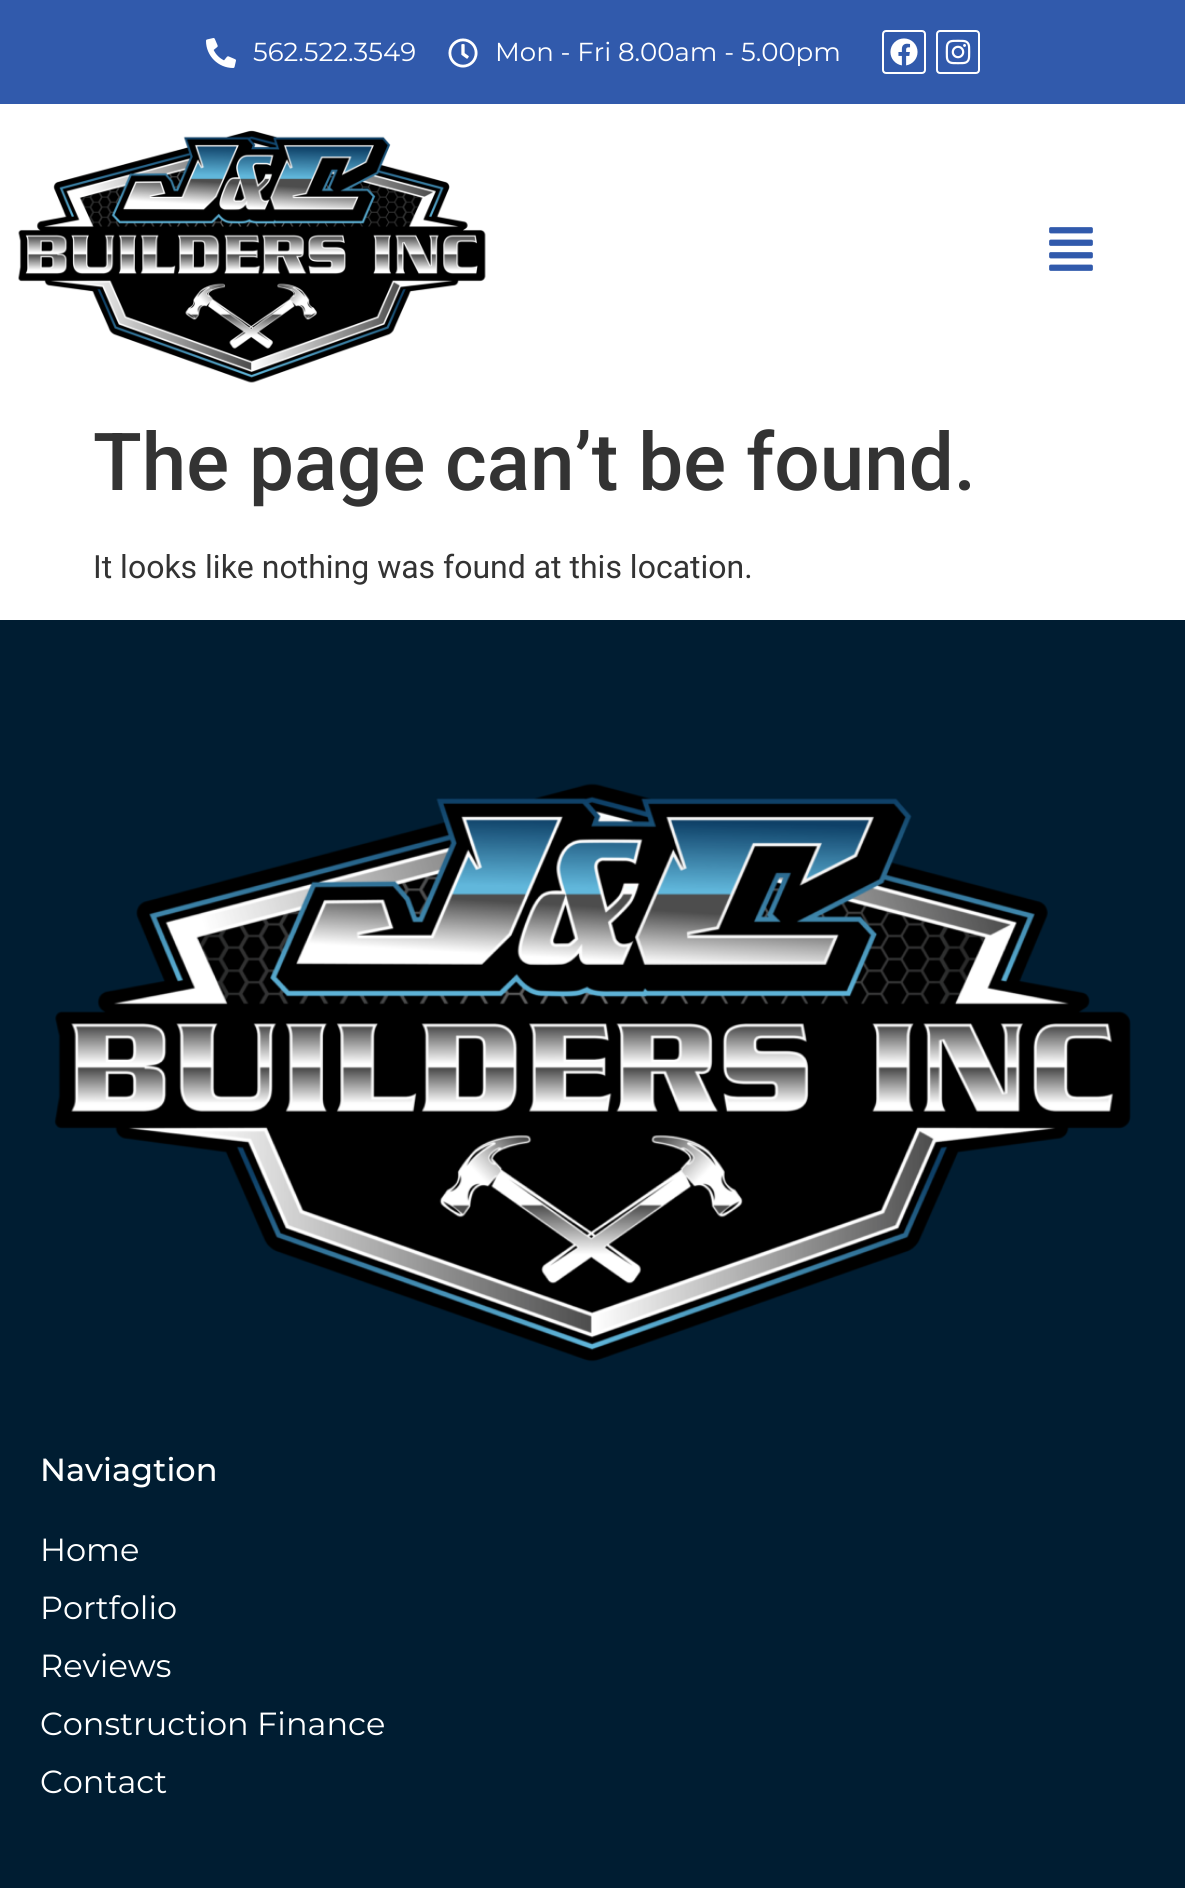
import math
import cairocffi as cairo

surface = cairo.ImageSurface(cairo.FORMAT_RGB24, 1185, 1888)
cr = cairo.Context(surface)
options = cairo.FontOptions()
options.set_hint_metrics(cairo.HINT_METRICS_OFF)
options.set_hint_style(cairo.HINT_STYLE_NONE)
cr.set_font_options(options)
cr.set_miter_limit(4)


def use_color(code):
    cr.set_source_rgb(*(v / 255 for v in bytes.fromhex(code[-6:])))


def round_rect(x, y, w, h, r):
    cr.new_sub_path()
    for i, (u, v) in enumerate([(x + w - r, y + h - r), (x + r, y + h - r), (x + r, y + r), (x + w - r, y + r)]):
        cr.arc(u, v, r, i * math.pi / 2, (i + 1) * math.pi / 2)
    cr.close_path()


def picture(path, x, y, w, h):
    cr.save()
    cr.set_source_surface(cairo.ImageSurface.create_from_png(path), x, y)
    cr.rectangle(x, y, w, h)
    cr.fill()
    cr.restore()


use_color("#ffffff")
cr.paint()
use_color("#315aac")
cr.rectangle(0, 0, 1185, 104)
cr.fill()
picture("img1.png", 206, 38, 30, 30)
cr.select_font_face("Montserrat")
cr.set_font_size(26)
use_color("#ffffff")
cr.move_to(253, 61)
cr.show_text("562.522.3549")
picture("img2.png", 448, 38, 30, 30)
cr.move_to(495, 61)
cr.show_text("Mon - Fri 8.00am - 5.00pm")
round_rect(883, 31, 42, 42, 3)
cr.stroke()
picture("img3.png", 890, 38, 28, 28)
round_rect(937, 31, 42, 42, 3)
cr.stroke()
picture("img4.png", 945, 39, 26, 26)
picture("img5.png", 18, 130, 468, 253)
picture("img6.png", 1049, 227, 44, 44)
cr.select_font_face("Roboto Medium")
cr.set_font_size(80)
use_color("#333333")
cr.move_to(93, 490)
cr.show_text("The page can’t be found.")
cr.select_font_face("Roboto")
cr.set_font_size(32)
cr.move_to(93, 578)
cr.show_text("It looks like nothing was found at this location.")
use_color("#001d32")
cr.rectangle(0, 620, 1185, 1268)
cr.fill()
picture("img7.png", 54, 783, 1077, 579)
cr.select_font_face("Montserrat Medium")
use_color("#ffffff")
cr.move_to(40, 1481)
cr.show_text("Naviagtion")
cr.select_font_face("Montserrat")
cr.move_to(40, 1561)
cr.show_text("Home")
cr.move_to(40, 1619)
cr.show_text("Portfolio")
cr.move_to(40, 1677)
cr.show_text("Reviews")
cr.move_to(40, 1735)
cr.show_text("Construction Finance")
cr.move_to(40, 1793)
cr.show_text("Contact")
surface.write_to_png("result.png")
